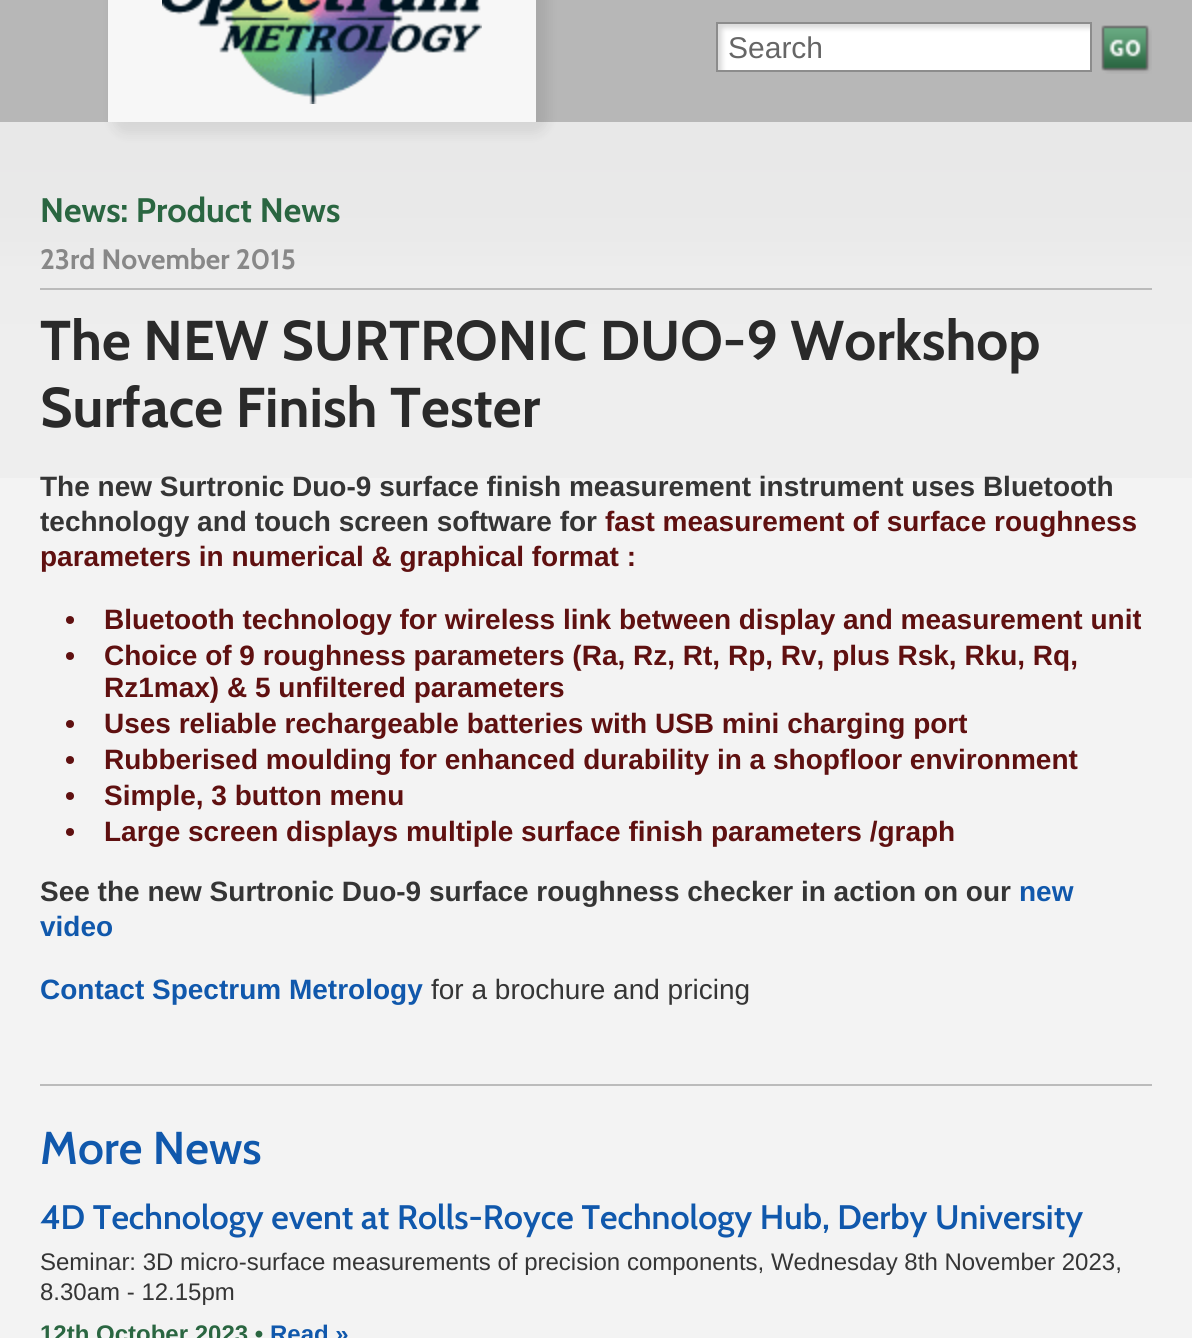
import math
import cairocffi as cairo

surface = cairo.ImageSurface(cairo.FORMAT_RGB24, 1192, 1338)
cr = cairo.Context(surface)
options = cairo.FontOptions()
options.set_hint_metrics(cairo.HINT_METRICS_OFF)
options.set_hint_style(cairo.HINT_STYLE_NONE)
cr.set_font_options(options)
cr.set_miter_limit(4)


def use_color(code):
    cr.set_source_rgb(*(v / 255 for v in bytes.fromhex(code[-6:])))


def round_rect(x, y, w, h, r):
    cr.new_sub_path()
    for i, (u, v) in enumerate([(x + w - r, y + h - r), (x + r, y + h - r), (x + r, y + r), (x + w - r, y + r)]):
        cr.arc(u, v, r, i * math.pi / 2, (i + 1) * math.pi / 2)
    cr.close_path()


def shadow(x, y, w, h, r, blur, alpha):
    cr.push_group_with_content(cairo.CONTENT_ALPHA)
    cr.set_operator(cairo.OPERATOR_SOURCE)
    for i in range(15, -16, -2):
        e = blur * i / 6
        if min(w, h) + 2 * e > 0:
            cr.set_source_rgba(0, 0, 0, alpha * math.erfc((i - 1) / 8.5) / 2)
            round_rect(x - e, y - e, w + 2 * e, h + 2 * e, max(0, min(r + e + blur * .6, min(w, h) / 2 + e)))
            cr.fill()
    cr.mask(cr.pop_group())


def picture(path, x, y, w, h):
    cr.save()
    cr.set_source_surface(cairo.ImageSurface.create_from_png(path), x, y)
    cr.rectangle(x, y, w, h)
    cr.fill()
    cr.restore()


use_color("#f3f3f3")
cr.paint()
picture("img1.png", 0, 122, 1192, 356)
use_color("#b7b7b7")
cr.rectangle(0, 0, 1192, 122)
cr.fill()
use_color("#000000")
shadow(112, -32, 436, 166, 14, 6, 0.08)
use_color("#f7f7f7")
cr.rectangle(108, 0, 428, 122)
cr.fill()
picture("img2.png", 162, 0, 320, 104)
picture("img3.png", 718, 24, 372, 46)
cr.rectangle(717, 23, 374, 48)
use_color("#8c8c8c")
cr.stroke()
cr.select_font_face("Liberation Sans")
cr.set_font_size(30)
use_color("#666666")
cr.move_to(728, 58)
cr.show_text("Search")
picture("img4.png", 1101, 25, 51, 49)
cr.select_font_face("Cabin", cairo.FONT_SLANT_NORMAL, cairo.FONT_WEIGHT_BOLD)
cr.set_font_size(34)
use_color("#2a6641")
cr.move_to(40, 222)
cr.show_text("News: Product News")
use_color("#bbbbbb")
cr.rectangle(40, 288, 1112, 2)
cr.fill()
cr.set_font_size(28)
use_color("#888888")
cr.move_to(40, 269)
cr.show_text("23rd November 2015")
cr.set_font_size(56)
use_color("#2a2a2a")
cr.move_to(40, 360)
cr.show_text("The NEW SURTRONIC DUO-9 Workshop")
cr.move_to(40, 427)
cr.show_text("Surface Finish Tester")
cr.select_font_face("Liberation Sans", cairo.FONT_SLANT_NORMAL, cairo.FONT_WEIGHT_BOLD)
cr.set_font_size(28)
use_color("#353535")
cr.move_to(40, 496)
cr.show_text("The new Surtronic Duo-9 surface finish measurement instrument uses Bluetooth")
cr.move_to(40, 531)
cr.show_text("technology and touch screen software for")
use_color("#5f1010")
cr.move_to(605, 531)
cr.show_text("fast measurement of surface roughness")
cr.move_to(40, 566)
cr.show_text("parameters in numerical & graphical format :")
cr.new_path()
cr.arc(70, 620, 4, 0, 2 * math.pi)
cr.fill()
cr.move_to(104, 629)
cr.show_text("Bluetooth technology for wireless link between display and measurement unit")
cr.new_path()
cr.arc(70, 656, 4, 0, 2 * math.pi)
cr.fill()
cr.move_to(104, 665)
cr.show_text("Choice of 9 roughness parameters (Ra, Rz, Rt, Rp, Rv, plus Rsk, Rku, Rq,")
cr.move_to(104, 697)
cr.show_text("Rz1max) & 5 unfiltered parameters")
cr.new_path()
cr.arc(70, 724, 4, 0, 2 * math.pi)
cr.fill()
cr.move_to(104, 733)
cr.show_text("Uses reliable rechargeable batteries with USB mini charging port")
cr.new_path()
cr.arc(70, 760, 4, 0, 2 * math.pi)
cr.fill()
cr.move_to(104, 769)
cr.show_text("Rubberised moulding for enhanced durability in a shopfloor environment")
cr.new_path()
cr.arc(70, 796, 4, 0, 2 * math.pi)
cr.fill()
cr.move_to(104, 805)
cr.show_text("Simple, 3 button menu")
cr.new_path()
cr.arc(70, 832, 4, 0, 2 * math.pi)
cr.fill()
cr.move_to(104, 841)
cr.show_text("Large screen displays multiple surface finish parameters /graph")
use_color("#353535")
cr.move_to(40, 901)
cr.show_text("See the new Surtronic Duo-9 surface roughness checker in action on our")
use_color("#1058ac")
cr.move_to(1019, 901)
cr.show_text("new")
cr.move_to(40, 936)
cr.show_text("video")
cr.move_to(40, 999)
cr.show_text("Contact Spectrum Metrology")
cr.select_font_face("Liberation Sans")
use_color("#353535")
cr.move_to(431, 999)
cr.show_text("for a brochure and pricing")
use_color("#bbbbbb")
cr.rectangle(40, 1084, 1112, 2)
cr.fill()
cr.select_font_face("Cabin SemiBold")
cr.set_font_size(46)
use_color("#1058ac")
cr.move_to(40, 1164)
cr.show_text("More News")
cr.set_font_size(34)
cr.move_to(40, 1229)
cr.show_text("4D Technology event at Rolls-Royce Technology Hub, Derby University")
cr.select_font_face("Liberation Sans")
cr.set_font_size(24)
use_color("#353535")
cr.move_to(40, 1270)
cr.show_text("Seminar: 3D micro-surface measurements of precision components, Wednesday 8th November 2023,")
cr.move_to(40, 1300)
cr.show_text("8.30am - 12.15pm")
cr.select_font_face("Liberation Sans", cairo.FONT_SLANT_NORMAL, cairo.FONT_WEIGHT_BOLD)
use_color("#2a6641")
cr.move_to(40, 1342)
cr.show_text("12th October 2023 •")
use_color("#1058ac")
cr.move_to(270, 1342)
cr.show_text("Read »")
surface.write_to_png("result.png")
